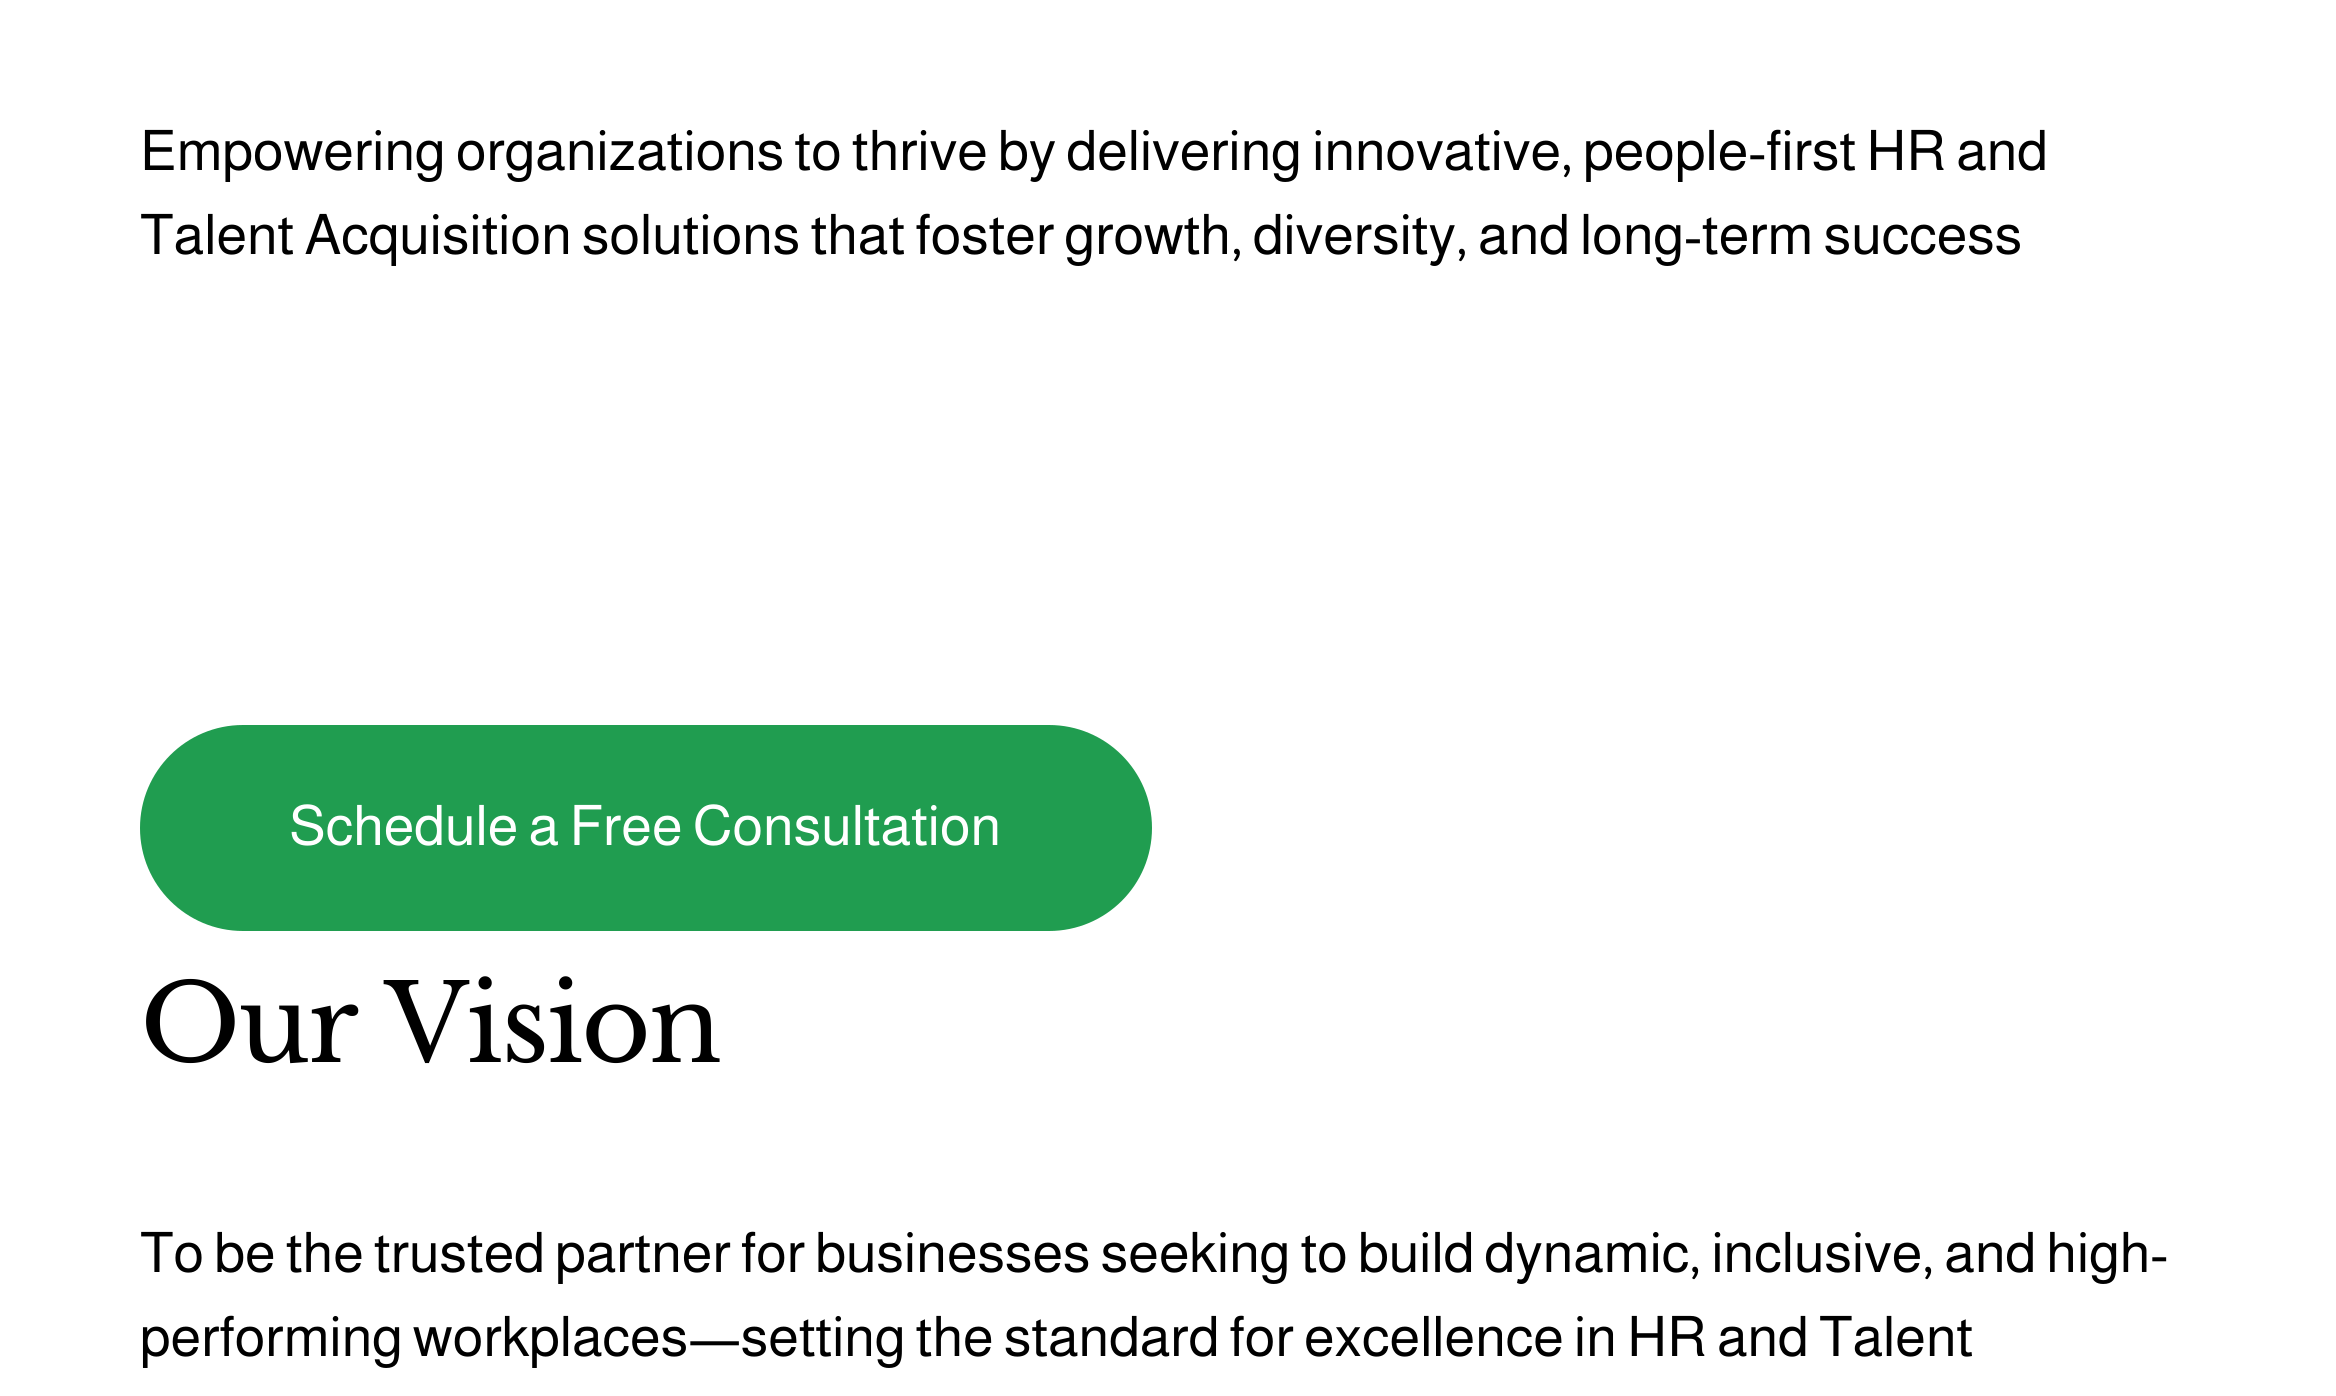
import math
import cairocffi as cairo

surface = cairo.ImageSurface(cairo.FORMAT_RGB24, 2336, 1396)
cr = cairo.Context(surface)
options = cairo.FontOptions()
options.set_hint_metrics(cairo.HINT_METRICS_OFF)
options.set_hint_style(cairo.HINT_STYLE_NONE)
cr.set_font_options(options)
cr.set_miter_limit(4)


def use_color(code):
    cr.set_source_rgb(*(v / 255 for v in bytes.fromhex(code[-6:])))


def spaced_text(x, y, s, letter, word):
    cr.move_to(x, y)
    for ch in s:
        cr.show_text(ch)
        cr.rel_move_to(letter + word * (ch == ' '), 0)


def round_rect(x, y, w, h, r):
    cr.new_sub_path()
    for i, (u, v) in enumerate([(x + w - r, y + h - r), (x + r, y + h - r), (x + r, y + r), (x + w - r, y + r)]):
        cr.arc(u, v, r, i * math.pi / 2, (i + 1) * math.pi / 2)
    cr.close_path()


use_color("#ffffff")
cr.paint()
cr.select_font_face("Almarai")
cr.set_font_size(56)
use_color("#000000")
cr.move_to(140, 170)
cr.show_text("Empowering organizations to thrive by delivering innovative, people-first HR and")
cr.move_to(140, 254)
cr.show_text("Talent Acquisition solutions that foster growth, diversity, and long-term success")
use_color("#209d50")
round_rect(140, 725, 1012, 206, 103)
cr.fill()
use_color("#ffffff")
cr.move_to(289, 845)
cr.show_text("Schedule a Free Consultation")
cr.select_font_face("Libre Baskerville")
cr.set_font_size(106.5)
use_color("#000000")
spaced_text(140, 1062, "Our Vision", -2.1, 0)
cr.select_font_face("Almarai")
cr.set_font_size(56)
cr.move_to(140, 1272)
cr.show_text("To be the trusted partner for businesses seeking to build dynamic, inclusive, and high-")
cr.move_to(140, 1356)
cr.show_text("performing workplaces—setting the standard for excellence in HR and Talent")
surface.write_to_png("result.png")
